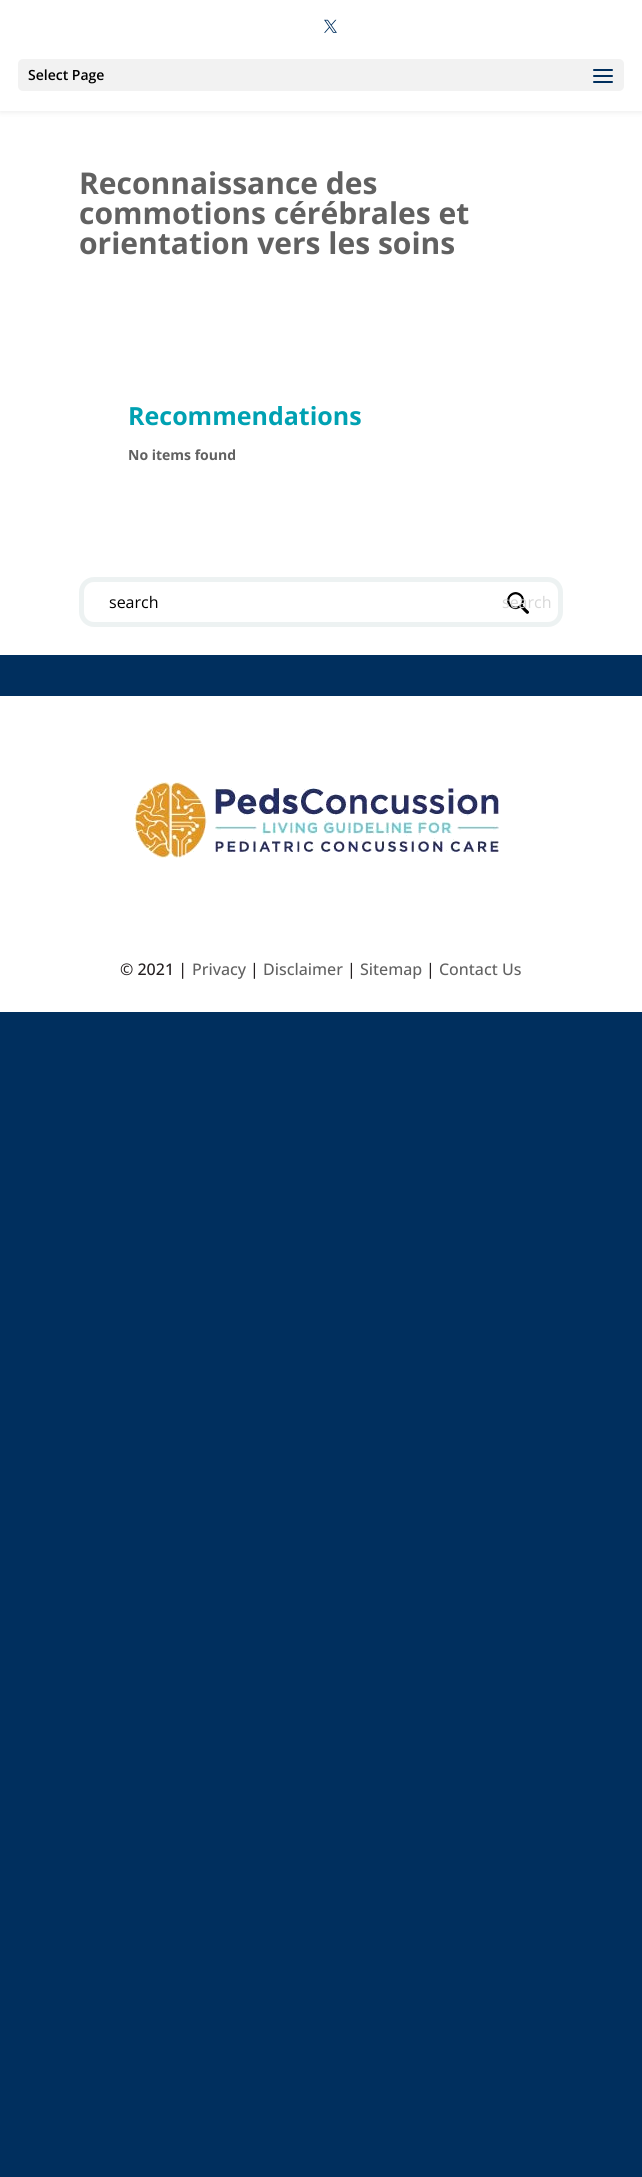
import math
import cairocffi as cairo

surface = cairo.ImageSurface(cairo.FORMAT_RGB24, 642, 2177)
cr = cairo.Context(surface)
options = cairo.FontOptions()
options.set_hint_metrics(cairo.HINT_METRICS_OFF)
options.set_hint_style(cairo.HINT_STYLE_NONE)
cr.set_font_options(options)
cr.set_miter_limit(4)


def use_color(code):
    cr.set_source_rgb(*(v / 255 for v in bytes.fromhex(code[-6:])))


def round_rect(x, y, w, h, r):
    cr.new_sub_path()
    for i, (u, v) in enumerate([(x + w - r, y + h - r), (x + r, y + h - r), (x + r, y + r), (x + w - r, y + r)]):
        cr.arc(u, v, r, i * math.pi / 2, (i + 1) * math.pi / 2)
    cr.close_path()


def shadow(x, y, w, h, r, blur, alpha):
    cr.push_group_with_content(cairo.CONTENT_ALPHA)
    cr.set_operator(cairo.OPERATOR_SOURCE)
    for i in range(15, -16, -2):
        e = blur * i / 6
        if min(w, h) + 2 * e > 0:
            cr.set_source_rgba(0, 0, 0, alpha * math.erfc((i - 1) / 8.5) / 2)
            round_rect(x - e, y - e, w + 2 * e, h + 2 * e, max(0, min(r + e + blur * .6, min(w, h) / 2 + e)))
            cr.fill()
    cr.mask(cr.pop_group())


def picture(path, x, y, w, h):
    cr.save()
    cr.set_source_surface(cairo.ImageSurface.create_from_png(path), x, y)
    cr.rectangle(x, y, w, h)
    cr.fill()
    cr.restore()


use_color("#002f5e")
cr.paint()
use_color("#ffffff")
cr.rectangle(0, 111, 642, 544)
cr.fill()
use_color("#000000")
shadow(0, 0, 642, 111, 0, 3.5, 0.1)
use_color("#ffffff")
cr.rectangle(0, 0, 642, 111)
cr.fill()
picture("img1.png", 324, 19, 13, 14)
use_color("#f2f2f2")
round_rect(18, 59, 606, 32, 5)
cr.fill()
cr.select_font_face("Open Sans SemiBold")
cr.set_font_size(14)
use_color("#000000")
cr.move_to(28, 80)
cr.show_text("Select Page")
picture("img2.png", 593, 69, 20, 14)
cr.select_font_face("Open Sans", cairo.FONT_SLANT_NORMAL, cairo.FONT_WEIGHT_BOLD)
cr.set_font_size(30)
use_color("#616161")
cr.move_to(79, 194)
cr.show_text("Reconnaissance des")
cr.move_to(79, 224)
cr.show_text("commotions cérébrales et")
cr.move_to(79, 254)
cr.show_text("orientation vers les soins")
cr.set_font_size(25)
use_color("#00a1b2")
cr.move_to(128, 425)
cr.show_text("Recommendations")
cr.set_font_size(14)
use_color("#616161")
cr.move_to(128, 460)
cr.show_text("No items found")
round_rect(81.5, 579.5, 479, 45, 12.5)
use_color("#edf2f2")
cr.set_line_width(5)
cr.stroke()
cr.select_font_face("Open Sans")
cr.set_font_size(16)
use_color("#000000")
cr.move_to(109, 608)
cr.show_text("search")
picture("img3.png", 507, 592, 22, 22)
use_color("#d7d7d7")
cr.move_to(502, 608)
cr.show_text("search")
use_color("#ffffff")
cr.rectangle(0, 696, 642, 316)
cr.fill()
picture("img4.png", 133, 782, 366, 76)
cr.select_font_face("Open Sans Medium")
use_color("#241f20")
cr.move_to(120, 975)
cr.show_text("© 2021 |")
use_color("#616161")
cr.move_to(192, 975)
cr.show_text("Privacy")
use_color("#241f20")
cr.move_to(250, 975)
cr.show_text("|")
use_color("#616161")
cr.move_to(263, 975)
cr.show_text("Disclaimer")
use_color("#241f20")
cr.move_to(347, 975)
cr.show_text("|")
use_color("#616161")
cr.move_to(360, 975)
cr.show_text("Sitemap")
use_color("#241f20")
cr.move_to(426, 975)
cr.show_text("|")
use_color("#616161")
cr.move_to(439, 975)
cr.show_text("Contact Us")
surface.write_to_png("result.png")
